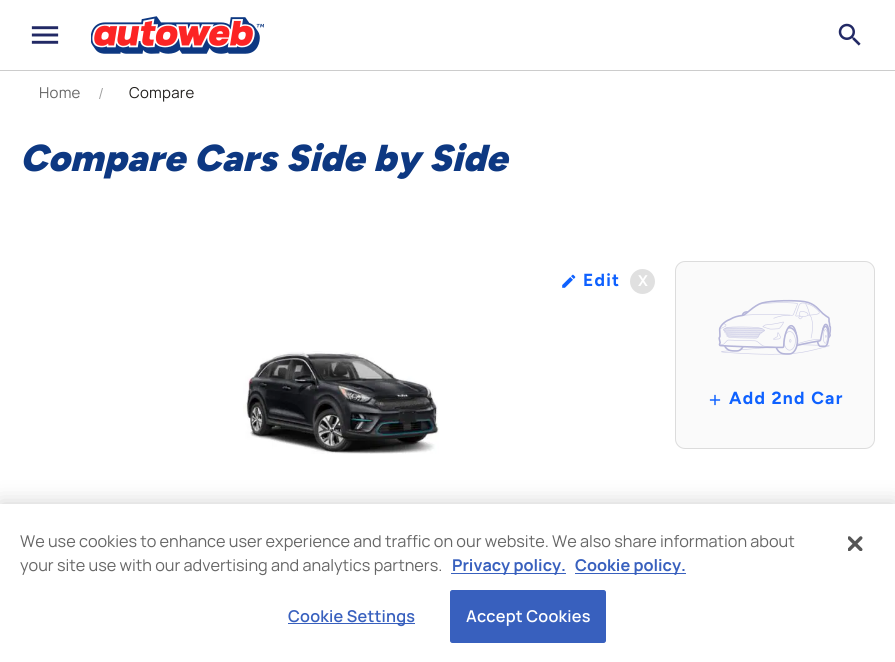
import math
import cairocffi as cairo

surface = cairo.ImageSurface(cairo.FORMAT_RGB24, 895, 662)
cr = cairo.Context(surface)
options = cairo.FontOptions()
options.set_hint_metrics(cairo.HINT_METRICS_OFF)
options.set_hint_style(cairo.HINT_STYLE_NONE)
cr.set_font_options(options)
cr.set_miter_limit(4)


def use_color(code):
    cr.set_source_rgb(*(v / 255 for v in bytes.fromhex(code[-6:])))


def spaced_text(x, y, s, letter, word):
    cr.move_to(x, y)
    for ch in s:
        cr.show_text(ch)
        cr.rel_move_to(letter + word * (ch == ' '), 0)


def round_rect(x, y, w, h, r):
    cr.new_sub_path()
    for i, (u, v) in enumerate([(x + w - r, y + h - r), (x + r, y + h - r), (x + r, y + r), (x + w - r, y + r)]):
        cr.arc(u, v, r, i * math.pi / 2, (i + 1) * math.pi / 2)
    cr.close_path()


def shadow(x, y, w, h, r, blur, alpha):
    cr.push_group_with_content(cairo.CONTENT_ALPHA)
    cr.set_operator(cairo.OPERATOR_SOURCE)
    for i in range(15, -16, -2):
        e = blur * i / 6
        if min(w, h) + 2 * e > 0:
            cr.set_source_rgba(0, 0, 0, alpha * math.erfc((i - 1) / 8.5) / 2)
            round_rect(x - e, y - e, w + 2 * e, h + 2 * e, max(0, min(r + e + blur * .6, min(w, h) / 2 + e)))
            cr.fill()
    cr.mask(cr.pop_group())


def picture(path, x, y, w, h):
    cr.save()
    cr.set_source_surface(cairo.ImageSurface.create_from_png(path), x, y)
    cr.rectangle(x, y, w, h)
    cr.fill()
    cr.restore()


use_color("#ffffff")
cr.paint()
picture("img1.png", 31, 26, 28, 18)
picture("img2.png", 91, 16, 173, 38)
picture("img3.png", 838, 23, 23, 23)
use_color("#cccccc")
cr.rectangle(0, 70, 895, 1)
cr.fill()
cr.select_font_face("Manrope")
cr.set_font_size(15)
use_color("#666666")
spaced_text(39, 98, "Home", 0.25, 0)
use_color("#9e9e9e")
cr.new_path()
cr.move_to(102, 88)
cr.line_to(103, 88)
cr.line_to(100, 99)
cr.line_to(99, 99)
cr.close_path()
cr.fill()
use_color("#22201e")
spaced_text(129, 98, "Compare", 0.25, 0)
cr.select_font_face("Figtree Black", cairo.FONT_SLANT_ITALIC)
cr.set_font_size(37.5)
use_color("#0d3882")
spaced_text(20, 171, "Compare Cars Side by Side", 0.3, 0)
picture("img4.png", 562, 274, 14, 14)
cr.select_font_face("Figtree", cairo.FONT_SLANT_NORMAL, cairo.FONT_WEIGHT_BOLD)
cr.set_font_size(17.5)
use_color("#0e61ff")
spaced_text(583, 286, "Edit", 1.25, 0)
use_color("#e0e0e0")
cr.new_path()
cr.arc(642.5, 281.5, 12.5, 0, 2 * math.pi)
cr.fill()
cr.select_font_face("Manrope", cairo.FONT_SLANT_NORMAL, cairo.FONT_WEIGHT_BOLD)
cr.set_font_size(15)
use_color("#ffffff")
cr.move_to(638, 286)
cr.show_text("X")
picture("img5.png", 243, 351, 196, 103)
use_color("#fafafa")
round_rect(675.5, 261.5, 199, 187, 9.5)
cr.fill_preserve()
use_color("#dcdcdc")
cr.set_line_width(1)
cr.stroke()
picture("img6.png", 718, 299, 114, 56)
picture("img7.png", 709, 394, 12, 12)
cr.select_font_face("Figtree", cairo.FONT_SLANT_NORMAL, cairo.FONT_WEIGHT_BOLD)
cr.set_font_size(17.5)
use_color("#0e61ff")
spaced_text(729, 404, "Add 2nd Car", 1.25, 0)
use_color("#000000")
shadow(0, 504, 895, 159, 0, 11, 0.2)
use_color("#ffffff")
cr.rectangle(0, 504, 895, 158)
cr.fill()
cr.select_font_face("Manrope")
cr.set_font_size(16.25)
use_color("#666666")
cr.move_to(20, 547)
cr.show_text("We use cookies to enhance user experience and traffic on our website. We also share information about")
cr.move_to(20, 571)
cr.show_text("your site use with our advertising and analytics partners.")
use_color("#3860be")
cr.rectangle(451, 573, 115, 1)
cr.fill()
cr.select_font_face("Manrope", cairo.FONT_SLANT_NORMAL, cairo.FONT_WEIGHT_BOLD)
cr.move_to(452, 571)
cr.show_text("Privacy policy.")
cr.rectangle(575, 573, 111, 1)
cr.fill()
cr.move_to(575, 571)
cr.show_text("Cookie policy.")
cr.rectangle(288, 623, 127, 1)
cr.fill()
cr.select_font_face("Manrope SemiBold")
spaced_text(288, 622, "Cookie Settings", 0.2, 0)
round_rect(450.5, 590.5, 155, 52, 2)
cr.fill_preserve()
cr.stroke()
use_color("#ffffff")
spaced_text(466, 622, "Accept Cookies", 0.2, 0)
picture("img8.png", 848, 536, 15, 15)
surface.write_to_png("result.png")
